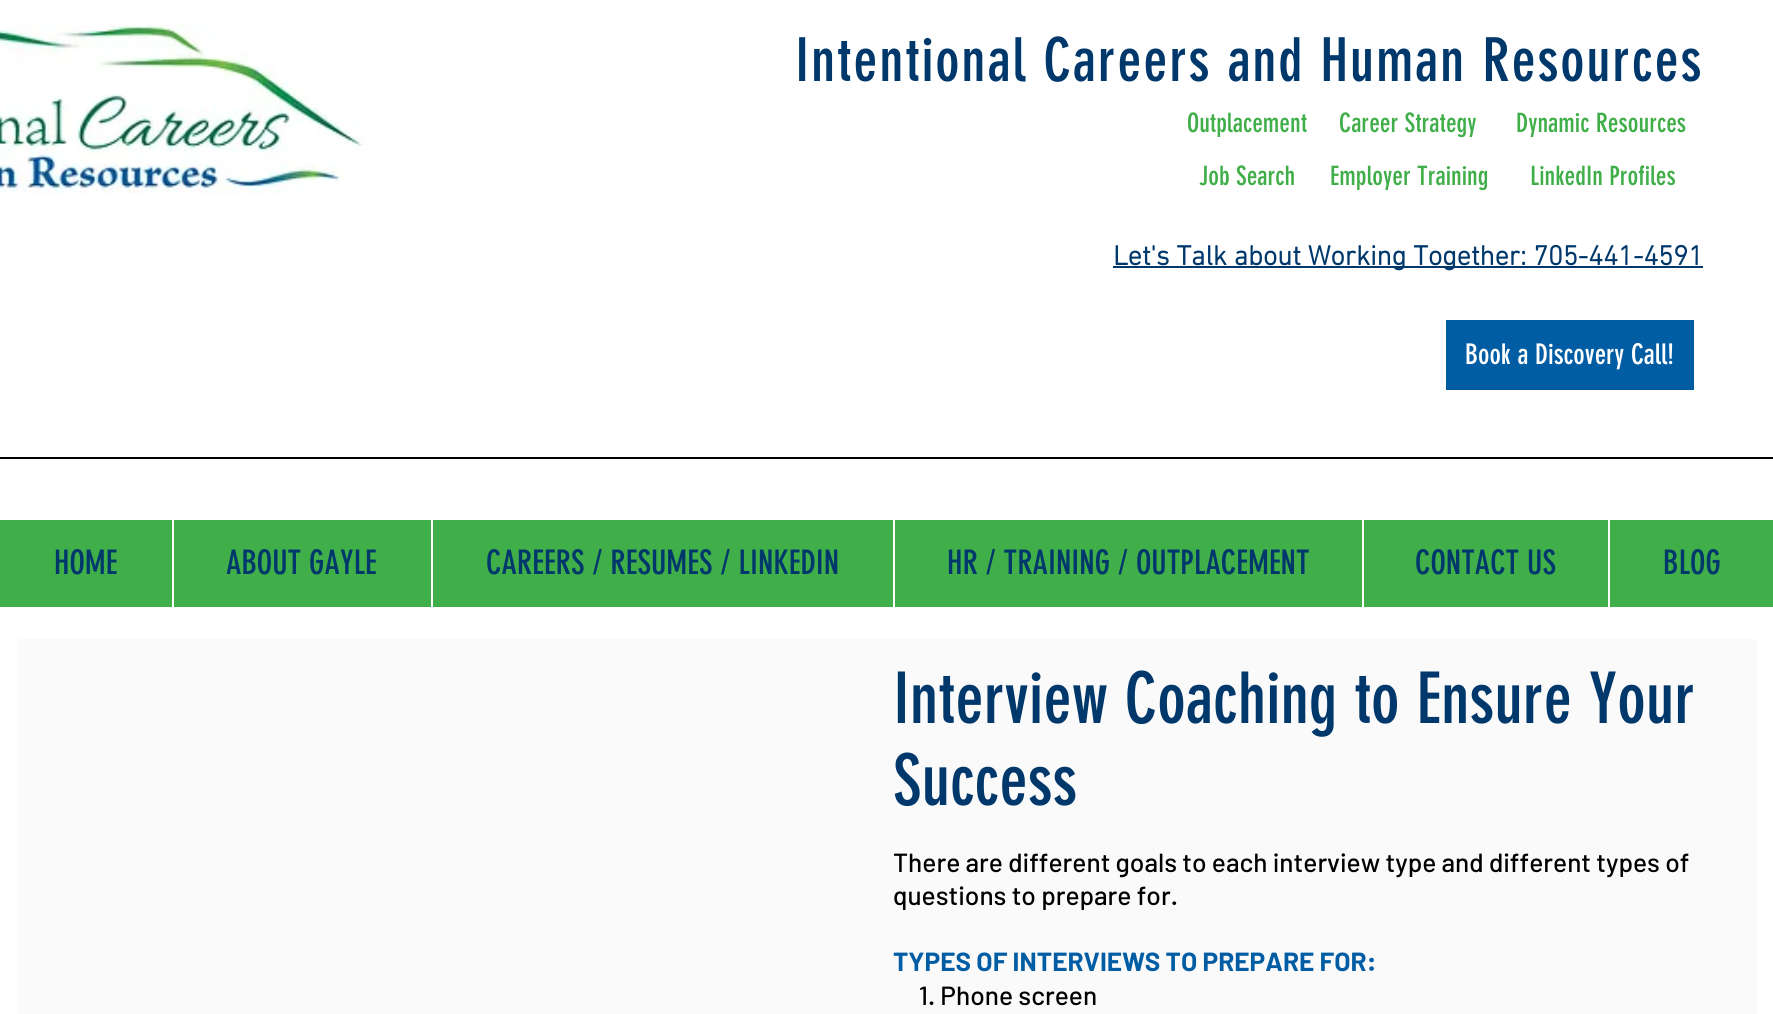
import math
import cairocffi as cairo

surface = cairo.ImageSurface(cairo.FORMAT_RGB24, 1773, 1014)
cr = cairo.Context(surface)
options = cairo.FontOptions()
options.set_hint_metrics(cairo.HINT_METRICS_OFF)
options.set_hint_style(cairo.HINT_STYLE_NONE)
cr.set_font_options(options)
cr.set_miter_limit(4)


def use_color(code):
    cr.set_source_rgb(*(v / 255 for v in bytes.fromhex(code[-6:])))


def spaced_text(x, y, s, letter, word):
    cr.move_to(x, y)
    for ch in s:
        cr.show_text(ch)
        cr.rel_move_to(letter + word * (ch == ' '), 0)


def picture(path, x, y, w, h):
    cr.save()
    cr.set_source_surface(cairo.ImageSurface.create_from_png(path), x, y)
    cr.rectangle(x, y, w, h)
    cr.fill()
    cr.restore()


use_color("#ffffff")
cr.paint()
picture("img1.png", 0, 22, 366, 173)
cr.select_font_face("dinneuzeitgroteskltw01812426")
cr.set_font_size(59.5)
use_color("#00386c")
spaced_text(795, 81, "Intentional Careers and Human Resources", 1.8, 0)
cr.rectangle(1113, 266, 590, 2)
cr.fill()
cr.select_font_face("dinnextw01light", cairo.FONT_SLANT_NORMAL, cairo.FONT_WEIGHT_BOLD)
cr.set_font_size(28)
cr.move_to(1113, 265)
cr.show_text("Let's Talk about Working Together: 705-441-4591")
cr.select_font_face("dinneuzeitgroteskltw01812426")
cr.set_font_size(26.25)
use_color("#40ae49")
cr.move_to(1187, 132)
cr.show_text("Outplacement")
cr.move_to(1339, 132)
cr.show_text("Career Strategy")
cr.move_to(1516, 132)
cr.show_text("Dynamic Resources")
cr.move_to(1199, 185)
cr.show_text("Job Search")
cr.move_to(1330, 185)
cr.show_text("Employer Training")
cr.move_to(1530, 185)
cr.show_text("LinkedIn Profiles")
use_color("#005da4")
cr.rectangle(1446, 320, 248, 70)
cr.fill()
cr.set_font_size(28)
use_color("#ffffff")
cr.move_to(1465, 364)
cr.show_text("Book a Discovery Call!")
use_color("#000000")
cr.rectangle(0, 457, 1773, 2)
cr.fill()
use_color("#40ae49")
cr.rectangle(0, 520, 1773, 87)
cr.fill()
cr.set_font_size(33.25)
use_color("#00386c")
cr.move_to(54, 574)
cr.show_text("HOME")
use_color("#ffffff")
cr.rectangle(172, 520, 2, 87)
cr.fill()
use_color("#00386c")
cr.move_to(226, 574)
cr.show_text("ABOUT GAYLE")
use_color("#ffffff")
cr.rectangle(431, 520, 2, 87)
cr.fill()
use_color("#00386c")
cr.move_to(486, 574)
cr.show_text("CAREERS / RESUMES / LINKEDIN")
use_color("#ffffff")
cr.rectangle(893, 520, 2, 87)
cr.fill()
use_color("#00386c")
cr.move_to(947, 574)
cr.show_text("HR / TRAINING / OUTPLACEMENT")
use_color("#ffffff")
cr.rectangle(1362, 520, 2, 87)
cr.fill()
use_color("#00386c")
cr.move_to(1415, 574)
cr.show_text("CONTACT US")
use_color("#ffffff")
cr.rectangle(1608, 520, 2, 87)
cr.fill()
use_color("#00386c")
cr.move_to(1663, 574)
cr.show_text("BLOG")
use_color("#fafafa")
cr.rectangle(18, 639, 1739, 375)
cr.fill()
cr.set_font_size(70)
use_color("#00386c")
cr.move_to(893, 723)
cr.show_text("Interview Coaching to Ensure Your")
cr.move_to(893, 805)
cr.show_text("Success")
cr.select_font_face("Barlow Medium")
cr.set_font_size(26.25)
use_color("#000000")
cr.move_to(893, 872)
cr.show_text("There are different goals to each interview type and different types of")
cr.move_to(893, 905)
cr.show_text("questions to prepare for.")
cr.select_font_face("Barlow", cairo.FONT_SLANT_NORMAL, cairo.FONT_WEIGHT_BOLD)
use_color("#005da4")
cr.move_to(893, 971)
cr.show_text("TYPES OF INTERVIEWS TO PREPARE FOR:")
cr.select_font_face("Barlow Medium")
use_color("#000000")
cr.move_to(919, 1005)
cr.show_text("1. Phone screen")
surface.write_to_png("result.png")
